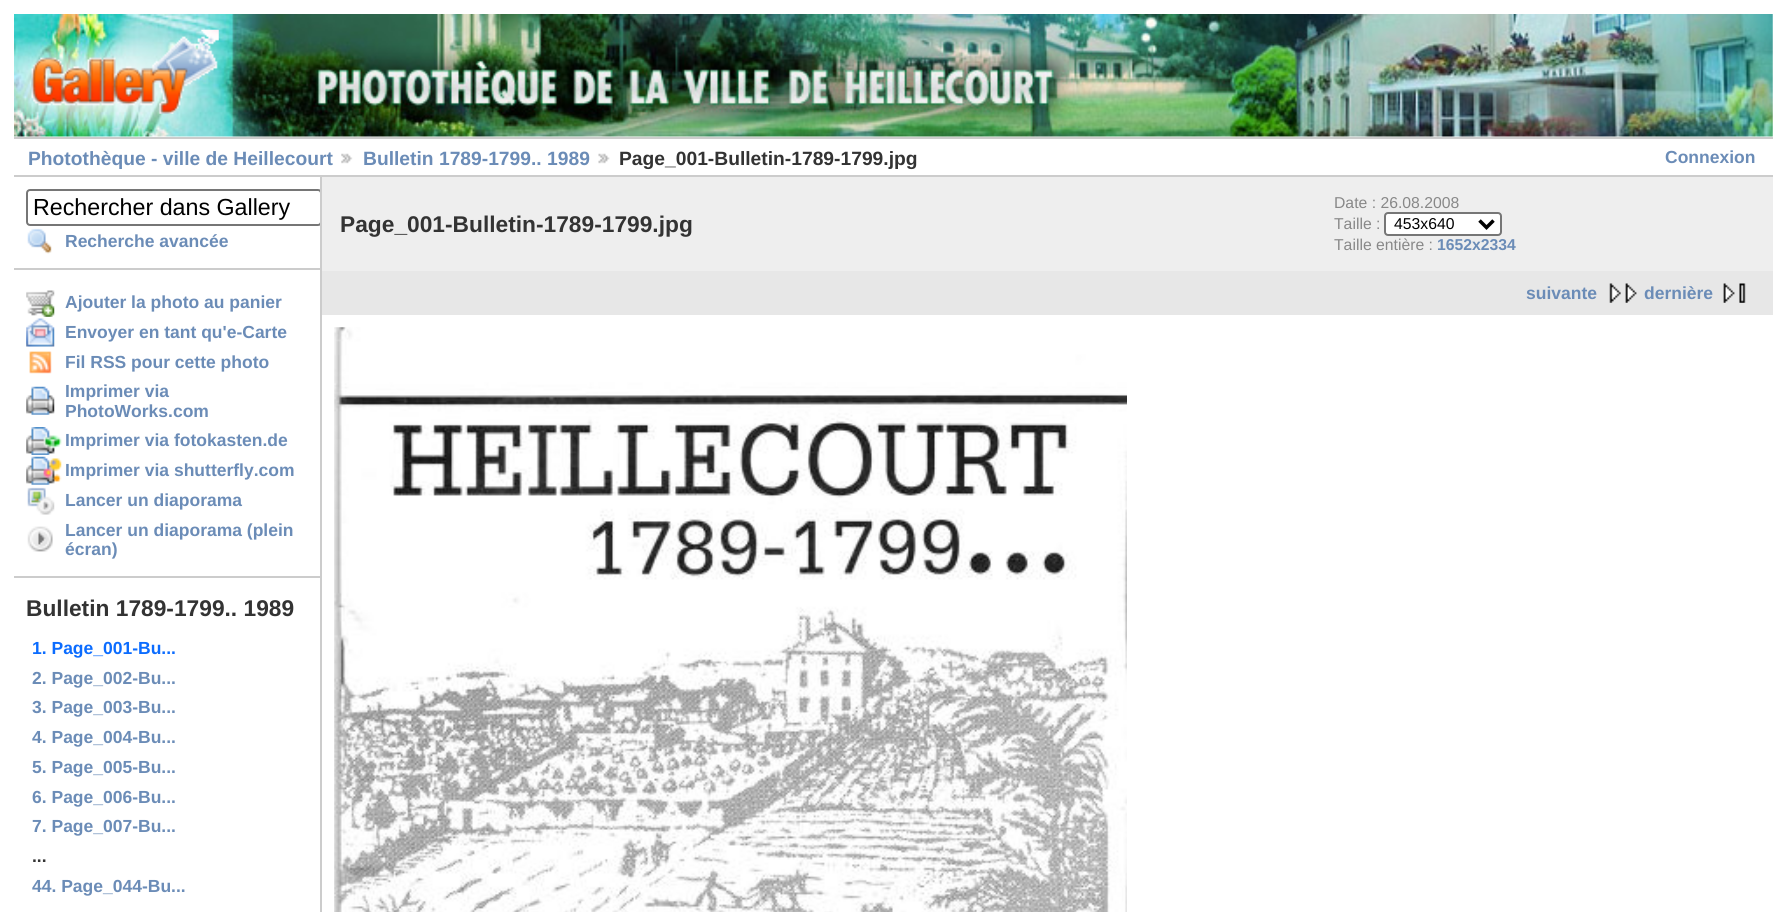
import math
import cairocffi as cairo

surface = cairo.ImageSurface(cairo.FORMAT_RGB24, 1786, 912)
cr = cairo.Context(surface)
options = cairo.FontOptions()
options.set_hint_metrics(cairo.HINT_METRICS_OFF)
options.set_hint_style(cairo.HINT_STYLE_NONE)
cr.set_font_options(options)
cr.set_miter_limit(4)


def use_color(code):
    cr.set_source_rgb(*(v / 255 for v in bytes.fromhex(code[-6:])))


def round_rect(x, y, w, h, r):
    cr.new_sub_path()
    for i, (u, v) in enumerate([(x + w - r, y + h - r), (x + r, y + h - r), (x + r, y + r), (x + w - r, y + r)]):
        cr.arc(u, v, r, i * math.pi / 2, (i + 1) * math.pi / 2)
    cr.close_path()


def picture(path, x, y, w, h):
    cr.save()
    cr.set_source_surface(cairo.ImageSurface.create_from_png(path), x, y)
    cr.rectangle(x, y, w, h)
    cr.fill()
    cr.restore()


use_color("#ffffff")
cr.paint()
picture("img1.png", 14, 14, 1759, 123)
picture("img2.png", 31, 29, 188, 85)
use_color("#cccccc")
cr.rectangle(14, 137, 1759, 2)
cr.fill()
cr.rectangle(14, 175, 1759, 2)
cr.fill()
cr.select_font_face("Liberation Sans", cairo.FONT_SLANT_NORMAL, cairo.FONT_WEIGHT_BOLD)
cr.set_font_size(19.25)
use_color("#6b8cb7")
cr.move_to(28, 165)
cr.show_text("Photothèque - ville de Heillecourt")
picture("img3.png", 341, 153, 12, 11)
cr.move_to(363, 165)
cr.show_text("Bulletin 1789-1799.. 1989")
picture("img4.png", 598, 153, 12, 11)
use_color("#333333")
cr.move_to(619, 165)
cr.show_text("Page_001-Bulletin-1789-1799.jpg")
cr.set_font_size(17.5)
use_color("#6b8cb7")
cr.move_to(1665, 163)
cr.show_text("Connexion")
use_color("#cccccc")
cr.rectangle(320, 177, 2, 735)
cr.fill()
cr.rectangle(14, 268, 306, 2)
cr.fill()
cr.save()
cr.rectangle(14, 177, 306, 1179)
cr.clip()
round_rect(27, 190, 294, 35, 3)
use_color("#767676")
cr.stroke()
cr.restore()
cr.select_font_face("Liberation Sans")
cr.set_font_size(23.25)
use_color("#000000")
cr.move_to(33, 215)
cr.show_text("Rechercher dans Gallery")
picture("img5.png", 27, 228, 25, 26)
cr.select_font_face("Liberation Sans", cairo.FONT_SLANT_NORMAL, cairo.FONT_WEIGHT_BOLD)
cr.set_font_size(17.5)
use_color("#6b8cb7")
cr.move_to(65, 247)
cr.show_text("Recherche avancée")
use_color("#cccccc")
cr.rectangle(14, 576, 306, 2)
cr.fill()
picture("img6.png", 26, 290, 29, 27)
use_color("#6b8cb7")
cr.move_to(65, 308)
cr.show_text("Ajouter la photo au panier")
picture("img7.png", 26, 318, 29, 29)
cr.move_to(65, 338)
cr.show_text("Envoyer en tant qu'e-Carte")
picture("img8.png", 29, 351, 23, 23)
cr.move_to(65, 368)
cr.show_text("Fil RSS pour cette photo")
picture("img9.png", 26, 386, 29, 29)
cr.move_to(65, 397)
cr.show_text("Imprimer via")
cr.move_to(65, 417)
cr.show_text("PhotoWorks.com")
picture("img10.png", 26, 427, 36, 28)
cr.move_to(65, 446)
cr.show_text("Imprimer via fotokasten.de")
picture("img11.png", 26, 456, 36, 29)
cr.move_to(65, 476)
cr.show_text("Imprimer via shutterfly.com")
picture("img12.png", 27, 487, 28, 28)
cr.move_to(65, 506)
cr.show_text("Lancer un diaporama")
picture("img13.png", 27, 526, 26, 26)
cr.move_to(65, 536)
cr.show_text("Lancer un diaporama (plein")
cr.move_to(65, 555)
cr.show_text("écran)")
cr.set_font_size(22.75)
use_color("#333333")
cr.move_to(26, 616)
cr.show_text("Bulletin 1789-1799.. 1989")
cr.set_font_size(17.5)
use_color("#0b6cff")
cr.move_to(32, 654)
cr.show_text("1. Page_001-Bu...")
use_color("#6b8cb7")
cr.move_to(32, 684)
cr.show_text("2. Page_002-Bu...")
cr.move_to(32, 713)
cr.show_text("3. Page_003-Bu...")
cr.move_to(32, 743)
cr.show_text("4. Page_004-Bu...")
cr.move_to(32, 773)
cr.show_text("5. Page_005-Bu...")
cr.move_to(32, 803)
cr.show_text("6. Page_006-Bu...")
cr.move_to(32, 832)
cr.show_text("7. Page_007-Bu...")
use_color("#333333")
cr.move_to(32, 862)
cr.show_text("...")
use_color("#6b8cb7")
cr.move_to(32, 892)
cr.show_text("44. Page_044-Bu...")
use_color("#eeeeee")
cr.rectangle(322, 177, 1451, 94)
cr.fill()
cr.set_font_size(22.75)
use_color("#333333")
cr.move_to(340, 232)
cr.show_text("Page_001-Bulletin-1789-1799.jpg")
cr.select_font_face("Liberation Sans")
cr.set_font_size(15.75)
use_color("#888888")
cr.move_to(1334, 208)
cr.show_text("Date : 26.08.2008")
cr.move_to(1334, 229)
cr.show_text("Taille :")
use_color("#ffffff")
round_rect(1385, 213, 116, 22, 3)
cr.fill_preserve()
use_color("#767676")
cr.stroke()
cr.new_path()
cr.move_to(1479.5, 220.5)
cr.line_to(1486.5, 227.5)
cr.line_to(1493.5, 220.5)
use_color("#000000")
cr.set_line_width(3.5)
cr.stroke()
cr.move_to(1394, 229)
cr.show_text("453x640")
use_color("#888888")
cr.move_to(1334, 250)
cr.show_text("Taille entière :")
cr.select_font_face("Liberation Sans", cairo.FONT_SLANT_NORMAL, cairo.FONT_WEIGHT_BOLD)
use_color("#6b8cb7")
cr.move_to(1437, 250)
cr.show_text("1652x2334")
use_color("#e7e7e7")
cr.rectangle(322, 271, 1451, 44)
cr.fill()
cr.set_font_size(17.5)
use_color("#6b8cb7")
cr.move_to(1526, 299)
cr.show_text("suivante")
picture("img14.png", 1609, 283, 28, 20)
cr.move_to(1644, 299)
cr.show_text("dernière")
picture("img15.png", 1723, 283, 23, 20)
picture("img16.png", 334, 327, 793, 585)
surface.write_to_png("result.png")
